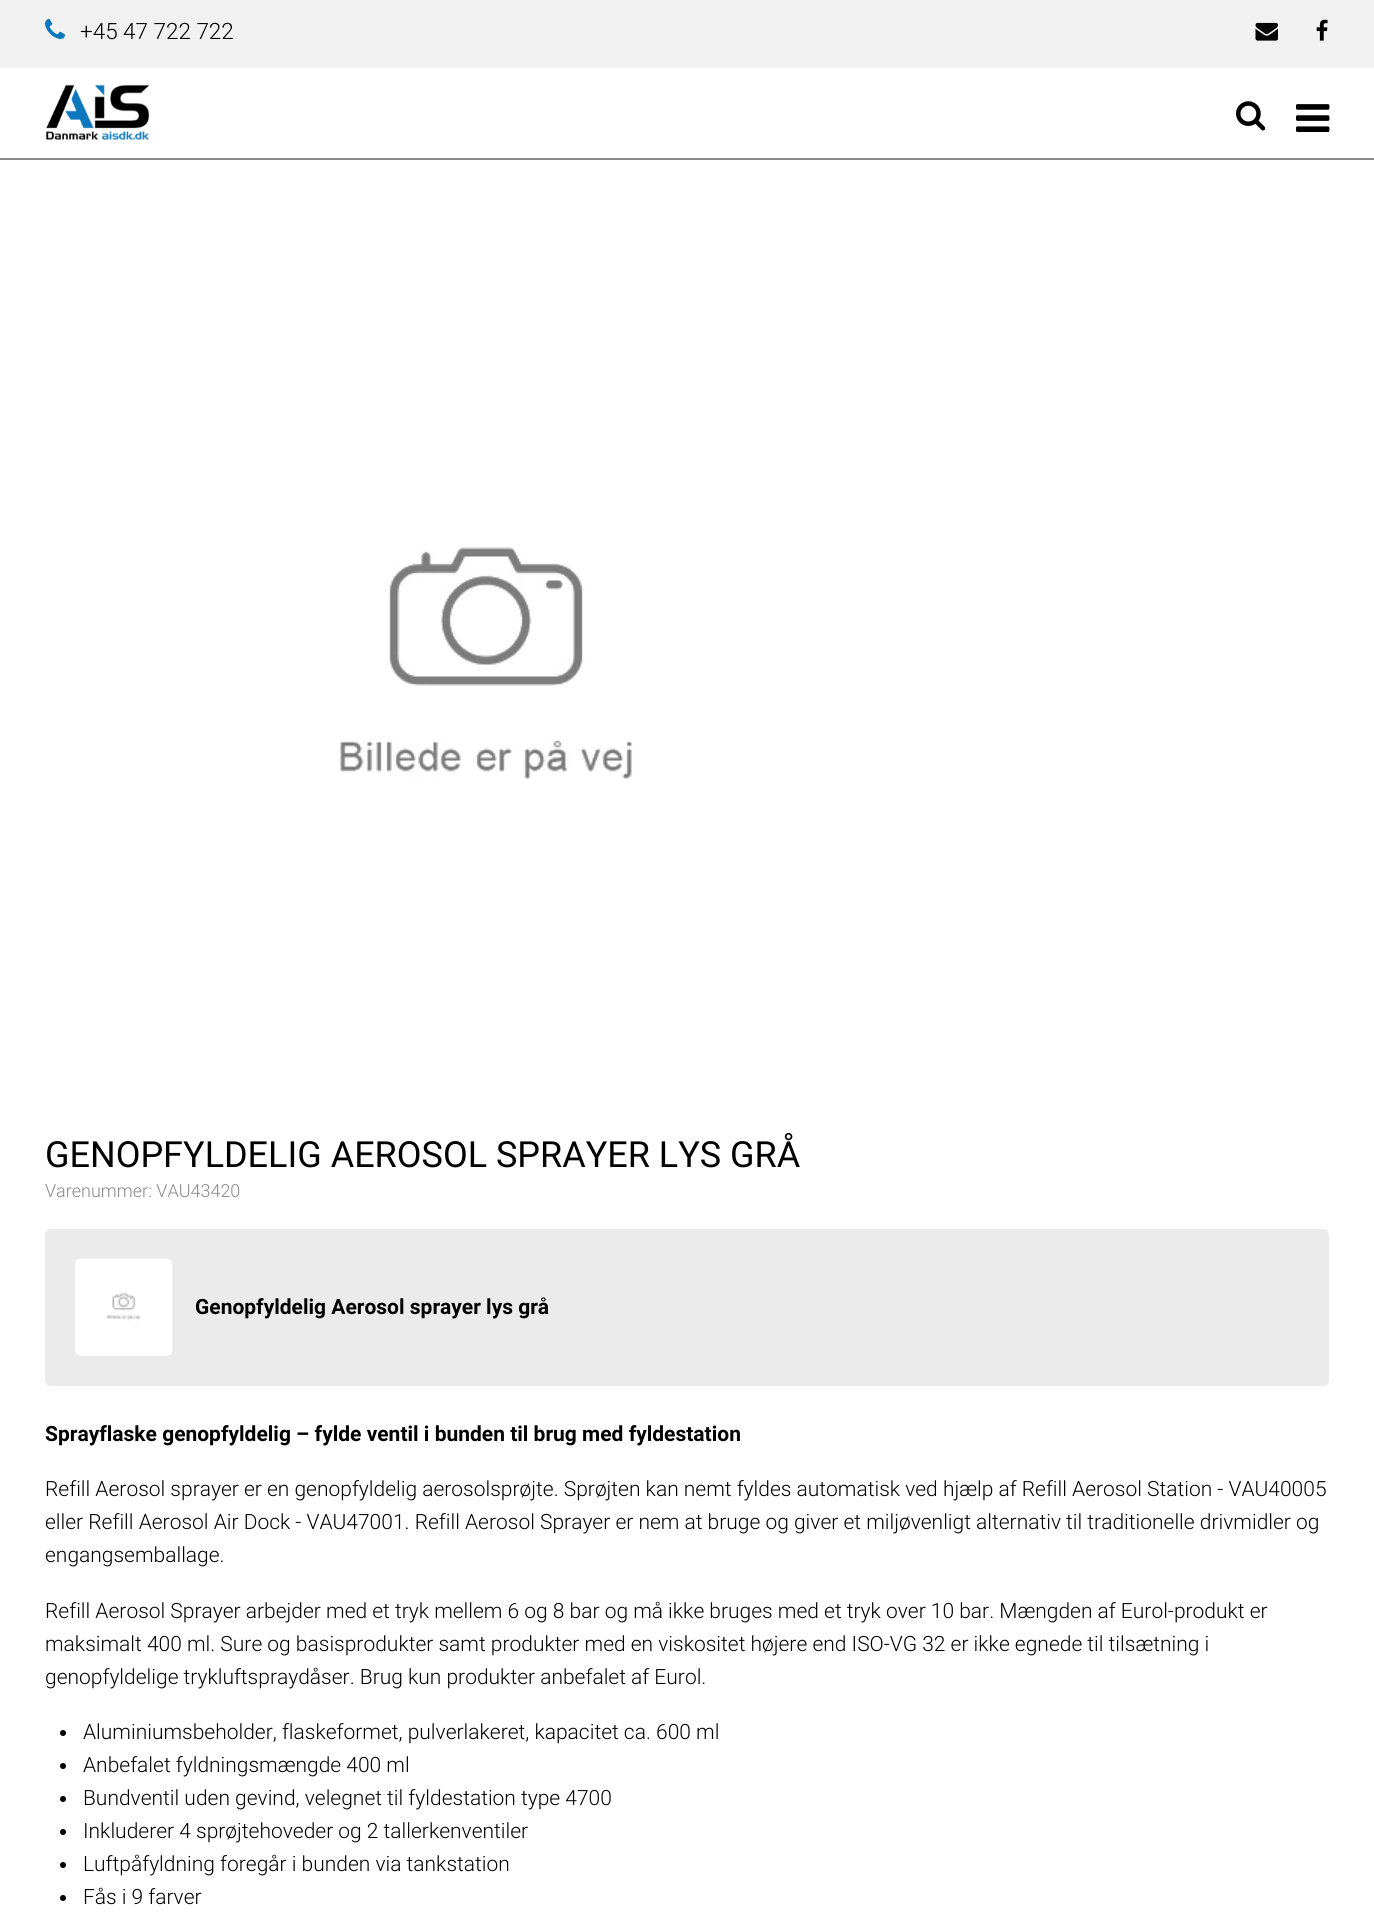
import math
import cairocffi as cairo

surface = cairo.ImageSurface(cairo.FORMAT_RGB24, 1374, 1917)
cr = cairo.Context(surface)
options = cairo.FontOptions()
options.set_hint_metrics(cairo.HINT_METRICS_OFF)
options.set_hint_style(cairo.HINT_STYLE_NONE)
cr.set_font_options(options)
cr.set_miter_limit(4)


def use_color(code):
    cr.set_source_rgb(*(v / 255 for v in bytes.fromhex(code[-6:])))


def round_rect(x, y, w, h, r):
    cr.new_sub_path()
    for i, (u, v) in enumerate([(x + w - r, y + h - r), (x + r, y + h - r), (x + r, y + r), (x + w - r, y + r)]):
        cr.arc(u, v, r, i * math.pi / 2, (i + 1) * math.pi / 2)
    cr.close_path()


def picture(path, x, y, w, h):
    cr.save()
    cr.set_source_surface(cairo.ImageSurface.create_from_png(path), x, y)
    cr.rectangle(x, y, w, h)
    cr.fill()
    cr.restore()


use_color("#ffffff")
cr.paint()
use_color("#f1f1f1")
cr.rectangle(0, 0, 1374, 68)
cr.fill()
picture("img1.png", 45, 19, 20, 20)
cr.select_font_face("Roboto Light")
cr.set_font_size(22.5)
use_color("#000000")
cr.move_to(80, 39)
cr.show_text("+45 47 722 722")
picture("img2.png", 1255, 22, 23, 19)
picture("img3.png", 1316, 19, 12, 22)
use_color("#888888")
cr.rectangle(0, 158, 1374, 2)
cr.fill()
picture("img4.png", 45, 84, 105, 56)
picture("img5.png", 1236, 101, 30, 30)
picture("img6.png", 1296, 104, 34, 28)
picture("img7.png", 340, 547, 293, 232)
cr.select_font_face("Roboto")
cr.set_font_size(36)
use_color("#000000")
cr.move_to(45, 1167)
cr.show_text("GENOPFYLDELIG AEROSOL SPRAYER LYS GRÅ")
cr.select_font_face("Roboto Light")
cr.set_font_size(18)
use_color("#888888")
cr.move_to(45, 1197)
cr.show_text("Varenummer: VAU43420")
use_color("#ebebeb")
round_rect(45, 1229, 1284, 157, 6)
cr.fill()
picture("img8.png", 75, 1258, 98, 98)
cr.select_font_face("Roboto", cairo.FONT_SLANT_NORMAL, cairo.FONT_WEIGHT_BOLD)
cr.set_font_size(21)
use_color("#000000")
cr.move_to(195, 1314)
cr.show_text("Genopfyldelig Aerosol sprayer lys grå")
cr.move_to(45, 1441)
cr.show_text("Sprayflaske genopfyldelig – fylde ventil i bunden til brug med fyldestation")
cr.select_font_face("Roboto Light")
cr.move_to(45, 1496)
cr.show_text("Refill Aerosol sprayer er en genopfyldelig aerosolsprøjte. Sprøjten kan nemt fyldes automatisk ved hjælp af Refill Aerosol Station - VAU40005")
cr.move_to(45, 1529)
cr.show_text("eller Refill Aerosol Air Dock - VAU47001. Refill Aerosol Sprayer er nem at bruge og giver et miljøvenligt alternativ til traditionelle drivmidler og")
cr.move_to(45, 1562)
cr.show_text("engangsemballage.")
cr.move_to(45, 1618)
cr.show_text("Refill Aerosol Sprayer arbejder med et tryk mellem 6 og 8 bar og må ikke bruges med et tryk over 10 bar. Mængden af Eurol-produkt er")
cr.move_to(45, 1651)
cr.show_text("maksimalt 400 ml. Sure og basisprodukter samt produkter med en viskositet højere end ISO-VG 32 er ikke egnede til tilsætning i")
cr.move_to(45, 1684)
cr.show_text("genopfyldelige trykluftspraydåser. Brug kun produkter anbefalet af Eurol.")
cr.new_path()
cr.arc(63, 1733, 3, 0, 2 * math.pi)
cr.fill()
cr.move_to(83, 1739)
cr.show_text("Aluminiumsbeholder, flaskeformet, pulverlakeret, kapacitet ca. 600 ml")
cr.new_path()
cr.arc(63, 1766, 3, 0, 2 * math.pi)
cr.fill()
cr.move_to(83, 1772)
cr.show_text("Anbefalet fyldningsmængde 400 ml")
cr.new_path()
cr.arc(63, 1799, 3, 0, 2 * math.pi)
cr.fill()
cr.move_to(83, 1805)
cr.show_text("Bundventil uden gevind, velegnet til fyldestation type 4700")
cr.new_path()
cr.arc(63, 1832, 3, 0, 2 * math.pi)
cr.fill()
cr.move_to(83, 1838)
cr.show_text("Inkluderer 4 sprøjtehoveder og 2 tallerkenventiler")
cr.new_path()
cr.arc(63, 1865, 3, 0, 2 * math.pi)
cr.fill()
cr.move_to(83, 1871)
cr.show_text("Luftpåfyldning foregår i bunden via tankstation")
cr.new_path()
cr.arc(63, 1898, 3, 0, 2 * math.pi)
cr.fill()
cr.move_to(83, 1904)
cr.show_text("Fås i 9 farver")
surface.write_to_png("result.png")
